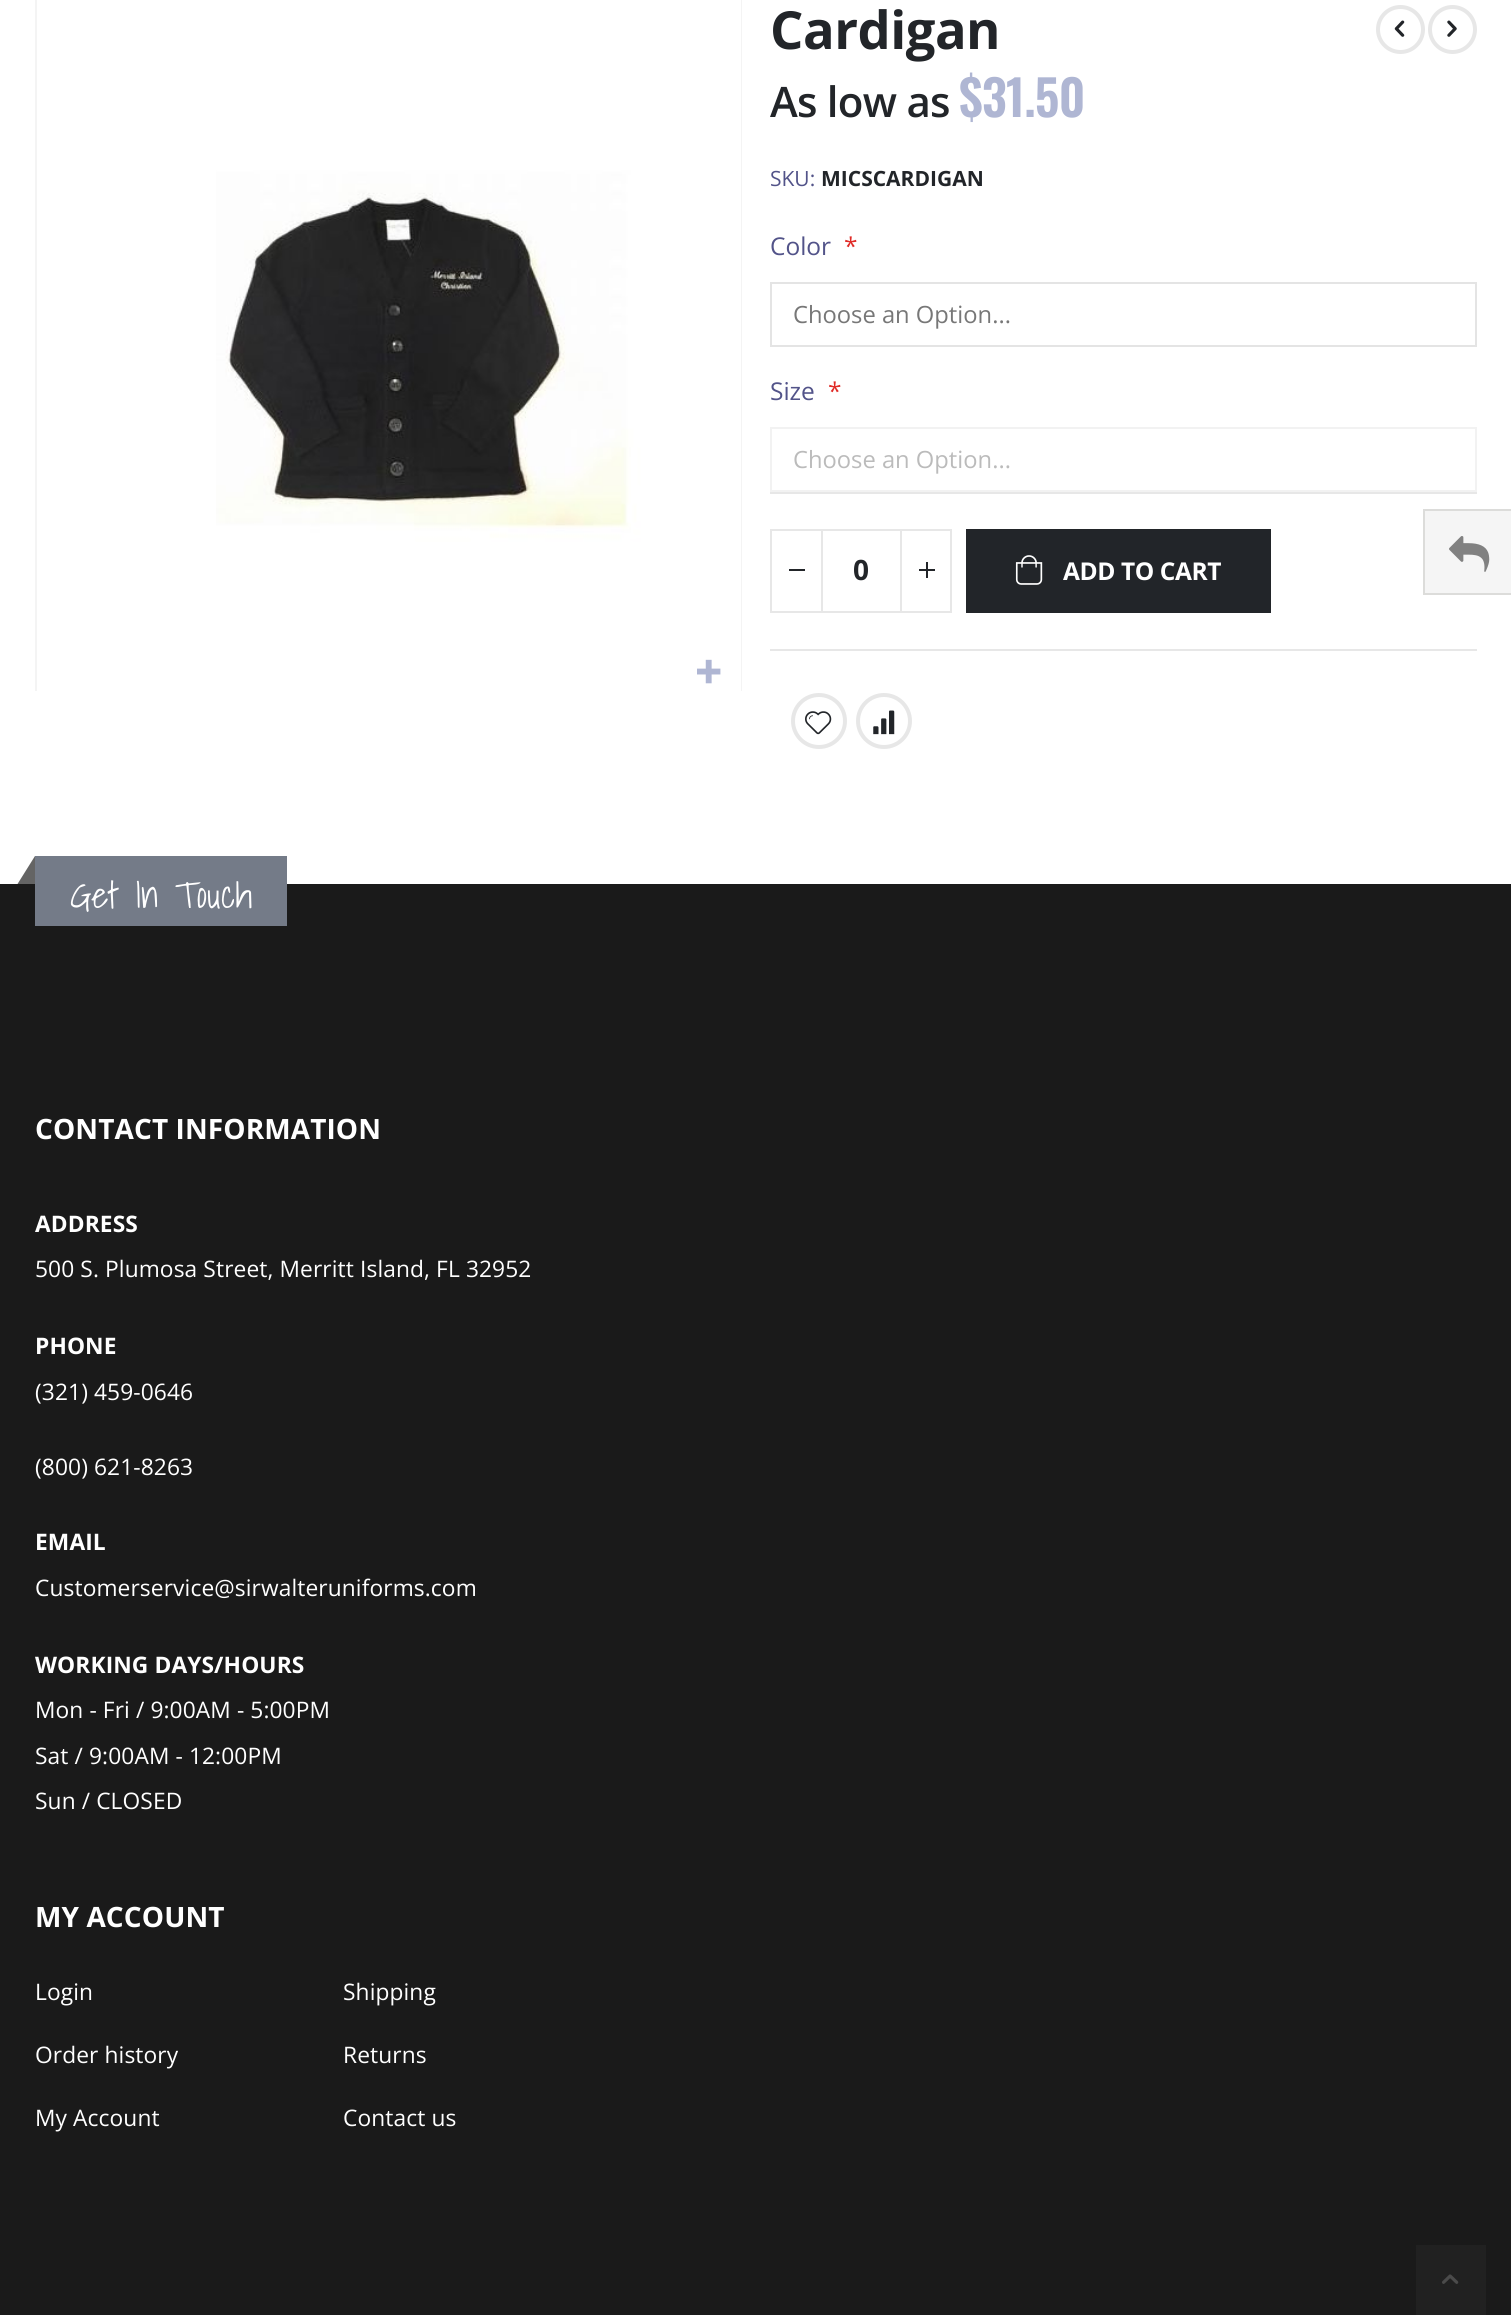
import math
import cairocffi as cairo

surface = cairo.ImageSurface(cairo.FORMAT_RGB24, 1511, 2315)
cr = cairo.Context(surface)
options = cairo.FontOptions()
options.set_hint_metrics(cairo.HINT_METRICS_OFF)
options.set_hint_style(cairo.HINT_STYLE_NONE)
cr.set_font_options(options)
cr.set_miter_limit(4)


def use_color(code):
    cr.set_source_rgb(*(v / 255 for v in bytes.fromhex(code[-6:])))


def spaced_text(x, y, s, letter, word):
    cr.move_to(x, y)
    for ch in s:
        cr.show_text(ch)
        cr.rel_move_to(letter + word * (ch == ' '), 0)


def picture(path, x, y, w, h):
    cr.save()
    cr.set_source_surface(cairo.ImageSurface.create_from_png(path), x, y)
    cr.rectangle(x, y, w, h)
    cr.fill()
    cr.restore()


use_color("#ffffff")
cr.paint()
cr.save()
cr.rectangle(35, 0, 707, 691)
cr.clip()
cr.rectangle(36, -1, 705, 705)
use_color("#f4f4f4")
cr.stroke()
cr.restore()
picture("img1.png", 216, 0, 525, 691)
picture("img2.png", 697, 659, 24, 25)
cr.select_font_face("Open Sans", cairo.FONT_SLANT_NORMAL, cairo.FONT_WEIGHT_BOLD)
cr.set_font_size(52.5)
use_color("#222529")
spaced_text(770, 49, "Cardigan", -0.5, 0)
cr.new_path()
cr.arc(1400.5, 29.5, 22.5, 0, 2 * math.pi)
use_color("#e7e7e7")
cr.set_line_width(4)
cr.stroke()
picture("img3.png", 1394, 20, 11, 17)
cr.arc(1452.5, 29.5, 22.5, 0, 2 * math.pi)
cr.stroke()
picture("img4.png", 1447, 20, 10, 17)
cr.select_font_face("Open Sans SemiBold")
cr.set_font_size(42)
use_color("#222529")
spaced_text(770, 117, "As low as", -0.75, 0)
cr.select_font_face("Oswald SemiBold")
cr.set_font_size(49)
use_color("#afb6d3")
spaced_text(959, 117, "$31.50", -0.75, 0)
cr.select_font_face("Open Sans")
cr.set_font_size(21)
use_color("#525389")
cr.move_to(770, 186)
cr.show_text("SKU:")
cr.select_font_face("Open Sans", cairo.FONT_SLANT_NORMAL, cairo.FONT_WEIGHT_BOLD)
use_color("#222529")
cr.move_to(821, 186)
cr.show_text("MICSCARDIGAN")
cr.select_font_face("Open Sans")
cr.set_font_size(24.5)
use_color("#525389")
cr.move_to(770, 255)
cr.show_text("Color")
use_color("#e02b27")
cr.move_to(844, 255)
cr.show_text("*")
cr.rectangle(771, 283, 705, 63)
use_color("#e4e4e4")
cr.set_line_width(2)
cr.stroke()
cr.set_font_size(23.75)
use_color("#777777")
cr.move_to(793, 323)
cr.show_text("Choose an Option...")
cr.set_font_size(24.5)
use_color("#525389")
cr.move_to(770, 400)
cr.show_text("Size")
use_color("#e02b27")
cr.move_to(828, 400)
cr.show_text("*")
cr.rectangle(771, 428, 705, 63)
use_color("#f2f2f2")
cr.stroke()
cr.set_font_size(23.75)
use_color("#bbbbbb")
cr.move_to(793, 468)
cr.show_text("Choose an Option...")
use_color("#e7e7e7")
cr.rectangle(770, 492, 707, 2)
cr.fill()
cr.rectangle(770, 649, 707, 2)
cr.fill()
cr.rectangle(771, 530, 51, 82)
cr.stroke()
use_color("#222529")
cr.rectangle(789, 569, 16, 2)
cr.fill()
cr.rectangle(901, 530, 50, 82)
use_color("#e7e7e7")
cr.stroke()
use_color("#222529")
cr.rectangle(919, 569, 16, 2)
cr.fill()
cr.rectangle(926, 562, 2, 16)
cr.fill()
use_color("#e7e7e7")
cr.rectangle(823, 529, 77, 2)
cr.fill()
cr.rectangle(823, 611, 77, 2)
cr.fill()
cr.select_font_face("Open Sans", cairo.FONT_SLANT_NORMAL, cairo.FONT_WEIGHT_BOLD)
cr.set_font_size(28)
use_color("#222529")
cr.move_to(853, 580)
cr.show_text("0")
cr.rectangle(966, 529, 305, 84)
cr.fill()
picture("img5.png", 1015, 555, 28, 30)
cr.set_font_size(24.5)
use_color("#ffffff")
spaced_text(1063, 580, "ADD TO CART", -0.4, 0)
cr.new_path()
cr.arc(819, 721, 26, 0, 2 * math.pi)
use_color("#e7e7e7")
cr.set_line_width(4)
cr.stroke()
picture("img6.png", 805, 711, 27, 24)
cr.arc(884, 721, 26, 0, 2 * math.pi)
cr.stroke()
picture("img7.png", 873, 710, 22, 25)
use_color("#f5f5f5")
cr.rectangle(1425, 511, 86, 82)
cr.fill()
use_color("#dcdcda")
cr.rectangle(1423, 509, 88, 2)
cr.fill()
cr.rectangle(1423, 593, 88, 2)
cr.fill()
cr.rectangle(1423, 509, 2, 86)
cr.fill()
picture("img8.png", 1449, 536, 41, 36)
use_color("#1a1a1a")
cr.rectangle(0, 884, 1511, 1431)
cr.fill()
use_color("#747b88")
cr.rectangle(35, 856, 252, 70)
cr.fill()
use_color("#646464")
cr.new_path()
cr.move_to(35, 856)
cr.line_to(35, 884)
cr.line_to(17.5, 884)
cr.close_path()
cr.fill()
cr.select_font_face("Shadows Into Light Light")
cr.set_font_size(36.5)
use_color("#ffffff")
spaced_text(70, 908, "Get In Touch", 0.1, 0)
cr.select_font_face("Open Sans", cairo.FONT_SLANT_NORMAL, cairo.FONT_WEIGHT_BOLD)
cr.set_font_size(28)
spaced_text(35, 1139, "CONTACT INFORMATION", 0.1, 0)
cr.set_font_size(22.75)
spaced_text(35, 1232, "ADDRESS", 0.1, 0)
cr.select_font_face("Open Sans")
spaced_text(35, 1277, "500 S. Plumosa Street, Merritt Island, FL 32952", 0.1, 0)
cr.select_font_face("Open Sans", cairo.FONT_SLANT_NORMAL, cairo.FONT_WEIGHT_BOLD)
spaced_text(35, 1354, "PHONE", 0.1, 0)
cr.select_font_face("Open Sans")
spaced_text(35, 1400, "(321) 459-0646", 0.1, 0)
spaced_text(35, 1475, "(800) 621-8263", 0.1, 0)
cr.select_font_face("Open Sans", cairo.FONT_SLANT_NORMAL, cairo.FONT_WEIGHT_BOLD)
spaced_text(35, 1550, "EMAIL", 0.1, 0)
cr.select_font_face("Open Sans")
spaced_text(35, 1596, "Customerservice@sirwalteruniforms.com", 0.1, 0)
cr.select_font_face("Open Sans", cairo.FONT_SLANT_NORMAL, cairo.FONT_WEIGHT_BOLD)
spaced_text(35, 1673, "WORKING DAYS/HOURS", 0.1, 0)
cr.select_font_face("Open Sans")
spaced_text(35, 1718, "Mon - Fri / 9:00AM - 5:00PM", 0.1, 0)
spaced_text(35, 1764, "Sat / 9:00AM - 12:00PM", 0.1, 0)
spaced_text(35, 1809, "Sun / CLOSED", 0.1, 0)
cr.select_font_face("Open Sans", cairo.FONT_SLANT_NORMAL, cairo.FONT_WEIGHT_BOLD)
cr.set_font_size(28)
spaced_text(35, 1927, "MY ACCOUNT", 0.1, 0)
cr.select_font_face("Open Sans")
cr.set_font_size(22.75)
spaced_text(35, 2000, "Login", 0.1, 0)
spaced_text(35, 2063, "Order history", 0.1, 0)
spaced_text(35, 2126, "My Account", 0.1, 0)
spaced_text(343, 2000, "Shipping", 0.1, 0)
spaced_text(343, 2063, "Returns", 0.1, 0)
spaced_text(343, 2126, "Contact us", 0.1, 0)
use_color("#212121")
cr.rectangle(1416, 2245, 70, 70)
cr.fill()
picture("img9.png", 1442, 2274, 17, 10)
surface.write_to_png("result.png")
